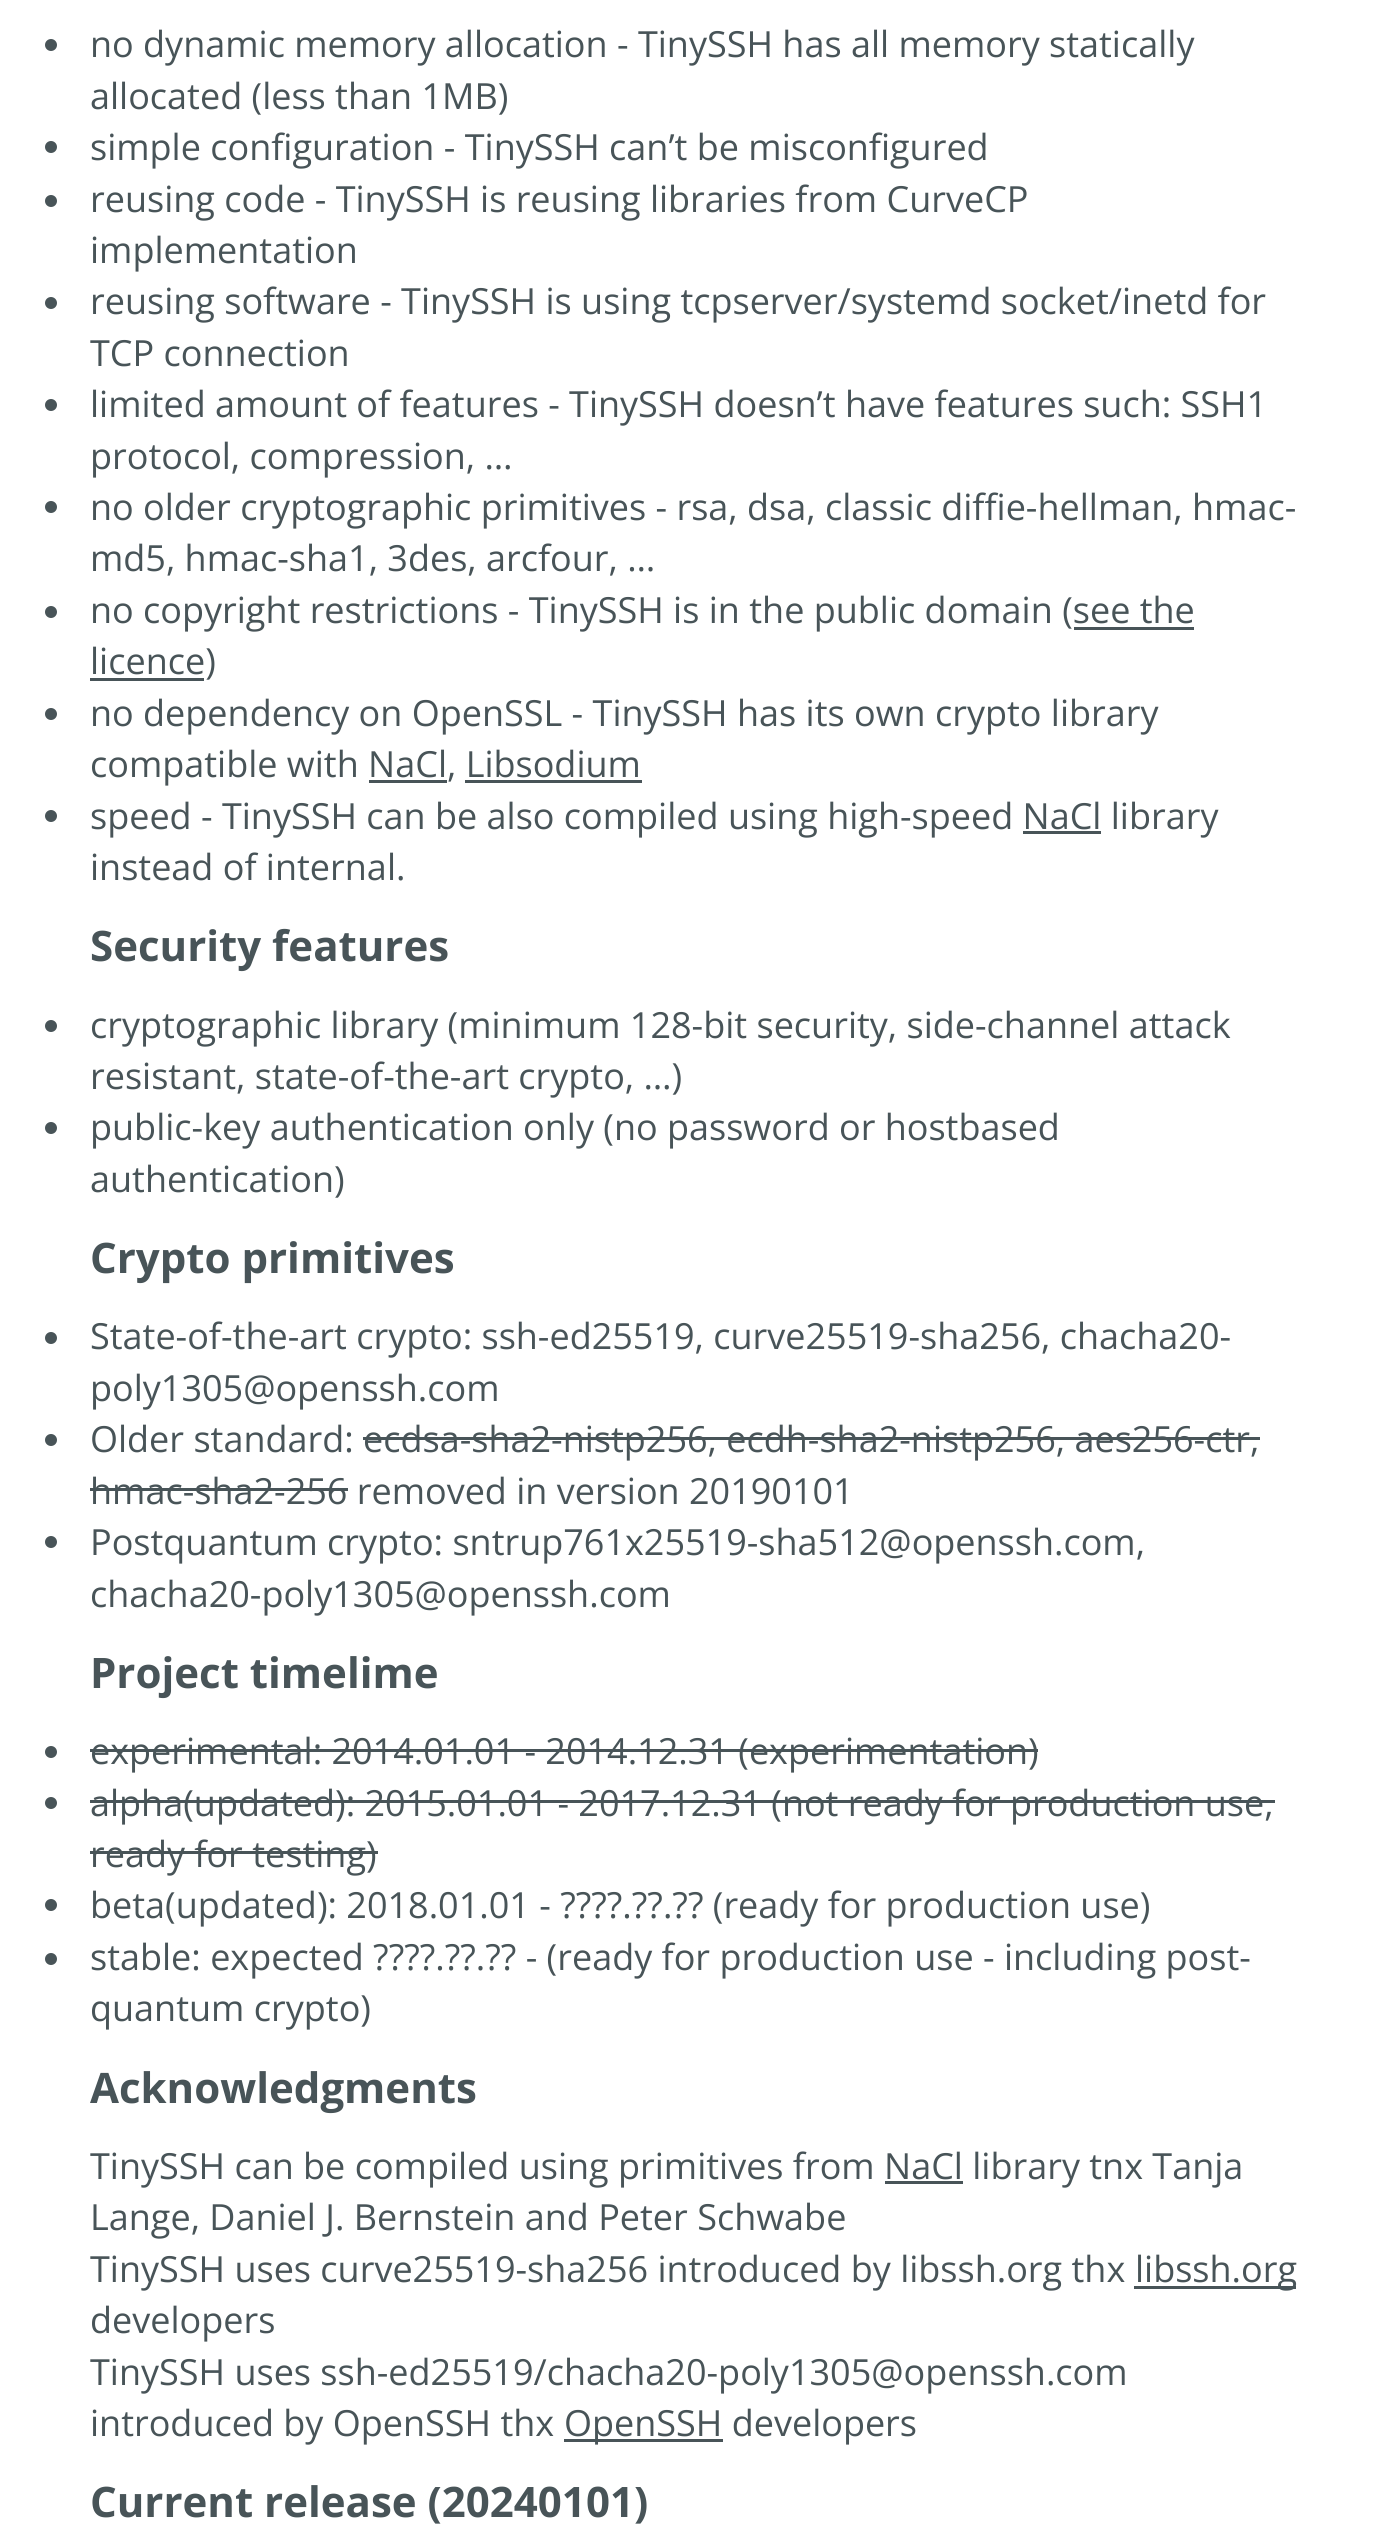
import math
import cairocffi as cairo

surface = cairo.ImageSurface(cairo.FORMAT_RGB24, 1387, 2528)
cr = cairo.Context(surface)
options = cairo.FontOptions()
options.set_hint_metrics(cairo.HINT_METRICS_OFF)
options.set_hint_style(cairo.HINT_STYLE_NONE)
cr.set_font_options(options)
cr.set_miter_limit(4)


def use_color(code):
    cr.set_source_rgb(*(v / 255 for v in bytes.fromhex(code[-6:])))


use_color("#ffffff")
cr.paint()
use_color("#485458")
cr.arc(51, 45, 6, 0, 2 * math.pi)
cr.fill()
cr.select_font_face("Open Sans")
cr.set_font_size(36)
cr.move_to(90, 57)
cr.show_text("no dynamic memory allocation - TinySSH has all memory statically")
cr.move_to(90, 109)
cr.show_text("allocated (less than 1MB)")
cr.new_path()
cr.arc(51, 147, 6, 0, 2 * math.pi)
cr.fill()
cr.move_to(90, 160)
cr.show_text("simple configuration - TinySSH can’t be misconfigured")
cr.new_path()
cr.arc(51, 201, 6, 0, 2 * math.pi)
cr.fill()
cr.move_to(90, 212)
cr.show_text("reusing code - TinySSH is reusing libraries from CurveCP")
cr.move_to(90, 263)
cr.show_text("implementation")
cr.new_path()
cr.arc(51, 303, 6, 0, 2 * math.pi)
cr.fill()
cr.move_to(90, 314)
cr.show_text("reusing software - TinySSH is using tcpserver/systemd socket/inetd for")
cr.move_to(90, 366)
cr.show_text("TCP connection")
cr.new_path()
cr.arc(51, 405, 6, 0, 2 * math.pi)
cr.fill()
cr.move_to(90, 417)
cr.show_text("limited amount of features - TinySSH doesn’t have features such: SSH1")
cr.move_to(90, 469)
cr.show_text("protocol, compression, …")
cr.new_path()
cr.arc(51, 507, 6, 0, 2 * math.pi)
cr.fill()
cr.move_to(90, 520)
cr.show_text("no older cryptographic primitives - rsa, dsa, classic diffie-hellman, hmac-")
cr.move_to(90, 571)
cr.show_text("md5, hmac-sha1, 3des, arcfour, …")
cr.new_path()
cr.arc(51, 612, 6, 0, 2 * math.pi)
cr.fill()
cr.move_to(90, 623)
cr.show_text("no copyright restrictions - TinySSH is in the public domain (see the")
cr.rectangle(90, 678, 114, 3)
cr.fill()
cr.move_to(90, 674)
cr.show_text("licence)")
cr.rectangle(1074, 627, 120, 3)
cr.fill()
cr.arc(51, 714, 6, 0, 2 * math.pi)
cr.fill()
cr.move_to(90, 726)
cr.show_text("no dependency on OpenSSL - TinySSH has its own crypto library")
cr.move_to(90, 777)
cr.show_text("compatible with NaCl, Libsodium")
cr.rectangle(369, 780, 78, 3)
cr.fill()
cr.rectangle(465, 780, 177, 3)
cr.fill()
cr.arc(51, 816, 6, 0, 2 * math.pi)
cr.fill()
cr.move_to(90, 829)
cr.show_text("speed - TinySSH can be also compiled using high-speed NaCl library")
cr.rectangle(1023, 831, 78, 3)
cr.fill()
cr.move_to(90, 880)
cr.show_text("instead of internal.")
cr.select_font_face("Open Sans", cairo.FONT_SLANT_NORMAL, cairo.FONT_WEIGHT_BOLD)
cr.set_font_size(42)
cr.move_to(90, 961)
cr.show_text("Security features")
cr.new_path()
cr.arc(51, 1026, 6, 0, 2 * math.pi)
cr.fill()
cr.select_font_face("Open Sans")
cr.set_font_size(36)
cr.move_to(90, 1038)
cr.show_text("cryptographic library (minimum 128-bit security, side-channel attack")
cr.move_to(90, 1089)
cr.show_text("resistant, state-of-the-art crypto, …)")
cr.new_path()
cr.arc(51, 1128, 6, 0, 2 * math.pi)
cr.fill()
cr.move_to(90, 1140)
cr.show_text("public-key authentication only (no password or hostbased")
cr.move_to(90, 1192)
cr.show_text("authentication)")
cr.select_font_face("Open Sans", cairo.FONT_SLANT_NORMAL, cairo.FONT_WEIGHT_BOLD)
cr.set_font_size(42)
cr.move_to(90, 1273)
cr.show_text("Crypto primitives")
cr.new_path()
cr.arc(51, 1338, 6, 0, 2 * math.pi)
cr.fill()
cr.select_font_face("Open Sans")
cr.set_font_size(36)
cr.move_to(90, 1349)
cr.show_text("State-of-the-art crypto: ssh-ed25519, curve25519-sha256, chacha20-")
cr.move_to(90, 1401)
cr.show_text("poly1305@openssh.com")
cr.new_path()
cr.arc(51, 1440, 6, 0, 2 * math.pi)
cr.fill()
cr.move_to(90, 1452)
cr.show_text("Older standard: ecdsa-sha2-nistp256, ecdh-sha2-nistp256, aes256-ctr,")
cr.move_to(90, 1504)
cr.show_text("hmac-sha2-256 removed in version 20190101")
cr.rectangle(363, 1437, 897, 3)
cr.fill()
cr.rectangle(90, 1488, 258, 3)
cr.fill()
cr.arc(51, 1542, 6, 0, 2 * math.pi)
cr.fill()
cr.move_to(90, 1555)
cr.show_text("Postquantum crypto: sntrup761x25519-sha512@openssh.com,")
cr.move_to(90, 1607)
cr.show_text("chacha20-poly1305@openssh.com")
cr.select_font_face("Open Sans", cairo.FONT_SLANT_NORMAL, cairo.FONT_WEIGHT_BOLD)
cr.set_font_size(42)
cr.move_to(90, 1688)
cr.show_text("Project timelime")
cr.new_path()
cr.arc(51, 1752, 6, 0, 2 * math.pi)
cr.fill()
cr.select_font_face("Open Sans")
cr.set_font_size(36)
cr.move_to(90, 1764)
cr.show_text("experimental: 2014.01.01 - 2014.12.31 (experimentation)")
cr.rectangle(90, 1749, 948, 3)
cr.fill()
cr.arc(51, 1803, 6, 0, 2 * math.pi)
cr.fill()
cr.move_to(90, 1816)
cr.show_text("alpha(updated): 2015.01.01 - 2017.12.31 (not ready for production use,")
cr.rectangle(90, 1800, 1185, 3)
cr.fill()
cr.move_to(90, 1867)
cr.show_text("ready for testing)")
cr.rectangle(90, 1851, 288, 3)
cr.fill()
cr.arc(51, 1905, 6, 0, 2 * math.pi)
cr.fill()
cr.move_to(90, 1918)
cr.show_text("beta(updated): 2018.01.01 - ????.??.?? (ready for production use)")
cr.new_path()
cr.arc(51, 1959, 6, 0, 2 * math.pi)
cr.fill()
cr.move_to(90, 1970)
cr.show_text("stable: expected ????.??.?? - (ready for production use - including post-")
cr.move_to(90, 2021)
cr.show_text("quantum crypto)")
cr.select_font_face("Open Sans", cairo.FONT_SLANT_NORMAL, cairo.FONT_WEIGHT_BOLD)
cr.set_font_size(42)
cr.move_to(90, 2103)
cr.show_text("Acknowledgments")
cr.select_font_face("Open Sans")
cr.set_font_size(36)
cr.move_to(90, 2179)
cr.show_text("TinySSH can be compiled using primitives from NaCl library tnx Tanja")
cr.rectangle(885, 2181, 78, 3)
cr.fill()
cr.move_to(90, 2230)
cr.show_text("Lange, Daniel J. Bernstein and Peter Schwabe")
cr.move_to(90, 2282)
cr.show_text("TinySSH uses curve25519-sha256 introduced by libssh.org thx")
cr.rectangle(1134, 2286, 162, 3)
cr.fill()
cr.move_to(1135, 2282)
cr.show_text("libssh.org")
cr.move_to(90, 2333)
cr.show_text("developers")
cr.move_to(90, 2385)
cr.show_text("TinySSH uses ssh-ed25519/chacha20-poly1305@openssh.com")
cr.move_to(90, 2436)
cr.show_text("introduced by OpenSSH thx")
cr.rectangle(564, 2439, 159, 3)
cr.fill()
cr.move_to(564, 2436)
cr.show_text("OpenSSH developers")
cr.select_font_face("Open Sans", cairo.FONT_SLANT_NORMAL, cairo.FONT_WEIGHT_BOLD)
cr.set_font_size(42)
cr.move_to(90, 2517)
cr.show_text("Current release (20240101)")
surface.write_to_png("result.png")
